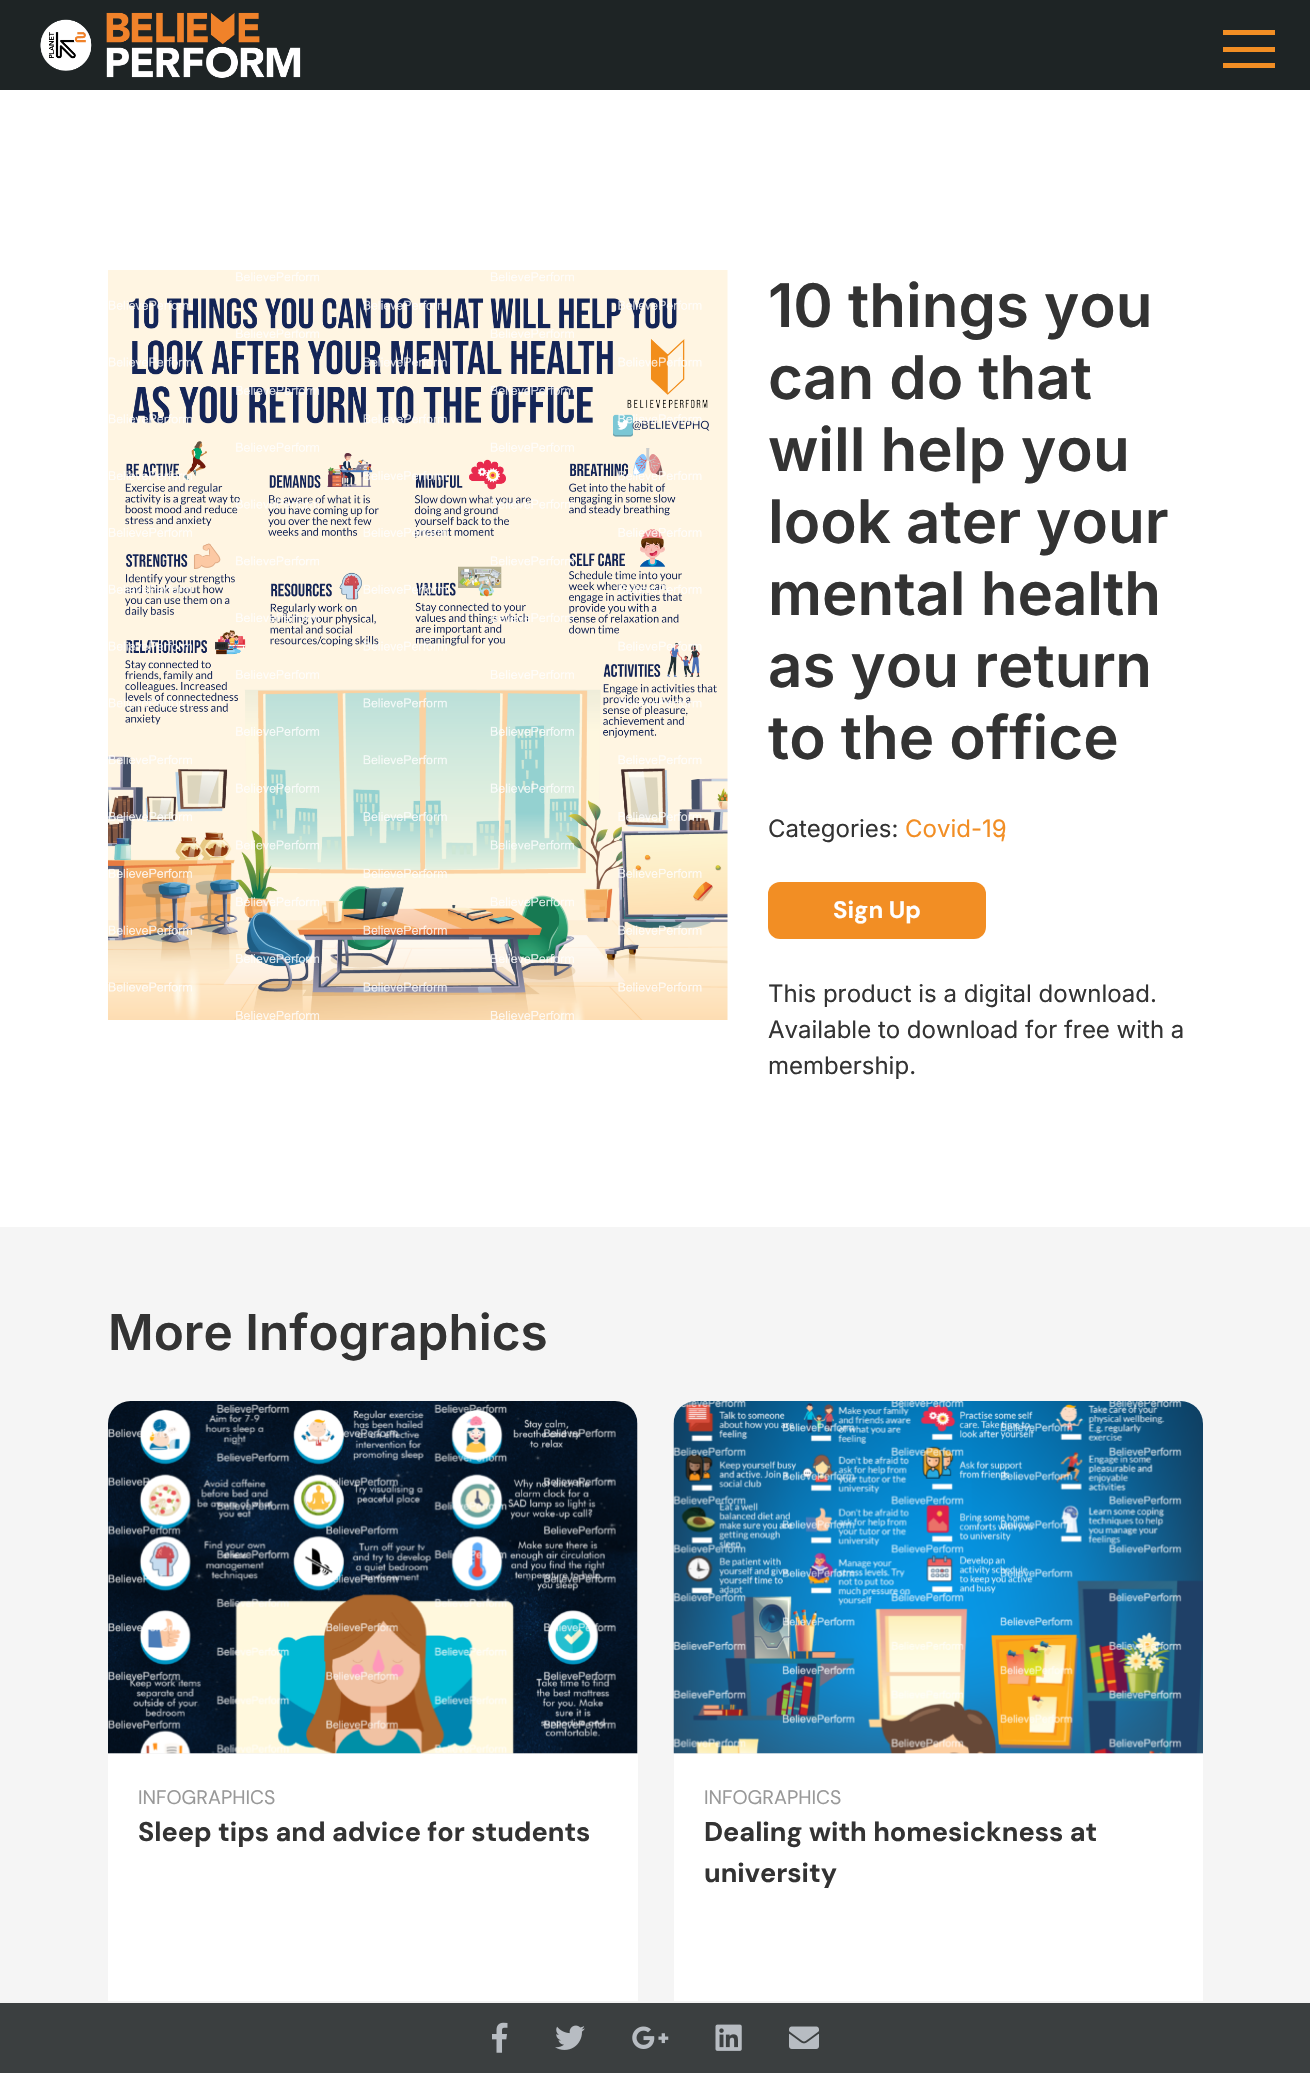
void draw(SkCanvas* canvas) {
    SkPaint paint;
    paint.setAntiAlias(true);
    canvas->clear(0xFFFFFFFF);
    paint.setColor(0xFF1E2425);
    canvas->drawRect(SkRect::MakeXYWH(0, 0, 1310, 90), paint);
    canvas->drawImageRect(SkImages::DeferredFromEncodedData(SkData::MakeFromFileName("img1.png")), SkRect::MakeXYWH(40, 12, 261, 66), SkSamplingOptions());
    paint.setColor(0xFFF28E24);
    canvas->drawRect(SkRect::MakeXYWH(1223, 30, 52, 5), paint);
    canvas->drawRect(SkRect::MakeXYWH(1223, 47, 52, 5), paint);
    canvas->drawRect(SkRect::MakeXYWH(1223, 63, 52, 5), paint);
    canvas->drawImageRect(SkImages::DeferredFromEncodedData(SkData::MakeFromFileName("img2.png")), SkRect::MakeXYWH(108, 270, 620, 750), SkSamplingOptions());
    SkFont font1(fontMgr->matchFamilyStyle("Inter", SkFontStyle(600, SkFontStyle::kNormal_Width, SkFontStyle::kUpright_Slant)), 60);
    font1.setSubpixel(true);
    paint.setColor(0xFF333333);
    canvas->drawString("10 things you", 768, 327, font1, paint);
    canvas->drawString("can do that", 768, 399, font1, paint);
    canvas->drawString("will help you", 768, 471, font1, paint);
    canvas->drawString("look ater your", 768, 543, font1, paint);
    canvas->drawString("mental health", 768, 615, font1, paint);
    canvas->drawString("as you return", 768, 687, font1, paint);
    canvas->drawString("to the office", 768, 759, font1, paint);
    SkFont font2(fontMgr->matchFamilyStyle("Inter", SkFontStyle::Normal()), 24);
    font2.setSubpixel(true);
    canvas->drawString("Categories:", 768, 837, font2, paint);
    paint.setColor(0xFFF28E24);
    canvas->drawString("Covid-19", 905, 837, font2, paint);
    canvas->drawString(",", 1000, 837, font2, paint);
    canvas->drawRoundRect(SkRect::MakeXYWH(768, 882, 218, 57), 12, 12, paint);
    SkFont font3(fontMgr->matchFamilyStyle("DM Sans", SkFontStyle::Bold()), 24);
    font3.setSubpixel(true);
    paint.setColor(0xFFFFFFFF);
    canvas->drawString("Sign Up", 833, 918, font3, paint);
    paint.setColor(0xFF333333);
    canvas->drawString("This product is a digital download.", 768, 1002, font2, paint);
    canvas->drawString("Available to download for free with a", 768, 1038, font2, paint);
    canvas->drawString("membership.", 768, 1074, font2, paint);
    paint.setColor(0xFFF5F5F5);
    canvas->drawRect(SkRect::MakeXYWH(0, 1227, 1310, 774), paint);
    SkFont font4(fontMgr->matchFamilyStyle("Inter", SkFontStyle(600, SkFontStyle::kNormal_Width, SkFontStyle::kUpright_Slant)), 49.5f);
    font4.setSubpixel(true);
    paint.setColor(0xFF333333);
    canvas->drawString("More Infographics", 108, 1350, font4, paint);
    canvas->drawImageRect(SkImages::DeferredFromEncodedData(SkData::MakeFromFileName("img3.png")), SkRect::MakeXYWH(108, 1401, 530, 353), SkSamplingOptions());
    paint.setColor(0xFFFFFFFF);
    canvas->drawRect(SkRect::MakeXYWH(108, 1754, 530, 247), paint);
    SkFont font5(fontMgr->matchFamilyStyle("DM Sans", SkFontStyle::Normal()), 19.5f);
    font5.setSubpixel(true);
    paint.setColor(0xFF999999);
    canvas->drawString("INFOGRAPHICS", 138, 1804, font5, paint);
    SkFont font6(fontMgr->matchFamilyStyle("DM Sans", SkFontStyle::Bold()), 27);
    font6.setSubpixel(true);
    paint.setColor(0xFF333333);
    canvas->drawString("Sleep tips and advice for students", 138, 1841, font6, paint);
    canvas->drawImageRect(SkImages::DeferredFromEncodedData(SkData::MakeFromFileName("img4.png")), SkRect::MakeXYWH(673, 1401, 530, 353), SkSamplingOptions());
    paint.setColor(0xFFFFFFFF);
    canvas->drawRect(SkRect::MakeXYWH(674, 1754, 529, 247), paint);
    paint.setColor(0xFF999999);
    canvas->drawString("INFOGRAPHICS", 704, 1804, font5, paint);
    paint.setColor(0xFF333333);
    canvas->drawString("Dealing with homesickness at", 704, 1841, font6, paint);
    canvas->drawString("university", 704, 1882, font6, paint);
    paint.setColor(0xFF3B3F40);
    canvas->drawRect(SkRect::MakeXYWH(0, 2003, 1310, 70), paint);
    paint.setColor(0xFFF3F3F3);
    canvas->drawRect(SkRect::MakeXYWH(0, 2001, 1310, 2), paint);
    canvas->drawImageRect(SkImages::DeferredFromEncodedData(SkData::MakeFromFileName("img5.png")), SkRect::MakeXYWH(492, 2022, 16, 31), SkSamplingOptions());
    canvas->drawImageRect(SkImages::DeferredFromEncodedData(SkData::MakeFromFileName("img6.png")), SkRect::MakeXYWH(555, 2025, 30, 25), SkSamplingOptions());
    canvas->drawImageRect(SkImages::DeferredFromEncodedData(SkData::MakeFromFileName("img7.png")), SkRect::MakeXYWH(632, 2026, 37, 23), SkSamplingOptions());
    canvas->drawImageRect(SkImages::DeferredFromEncodedData(SkData::MakeFromFileName("img8.png")), SkRect::MakeXYWH(715, 2024, 27, 27), SkSamplingOptions());
    canvas->drawImageRect(SkImages::DeferredFromEncodedData(SkData::MakeFromFileName("img9.png")), SkRect::MakeXYWH(789, 2026, 30, 23), SkSamplingOptions());
}
